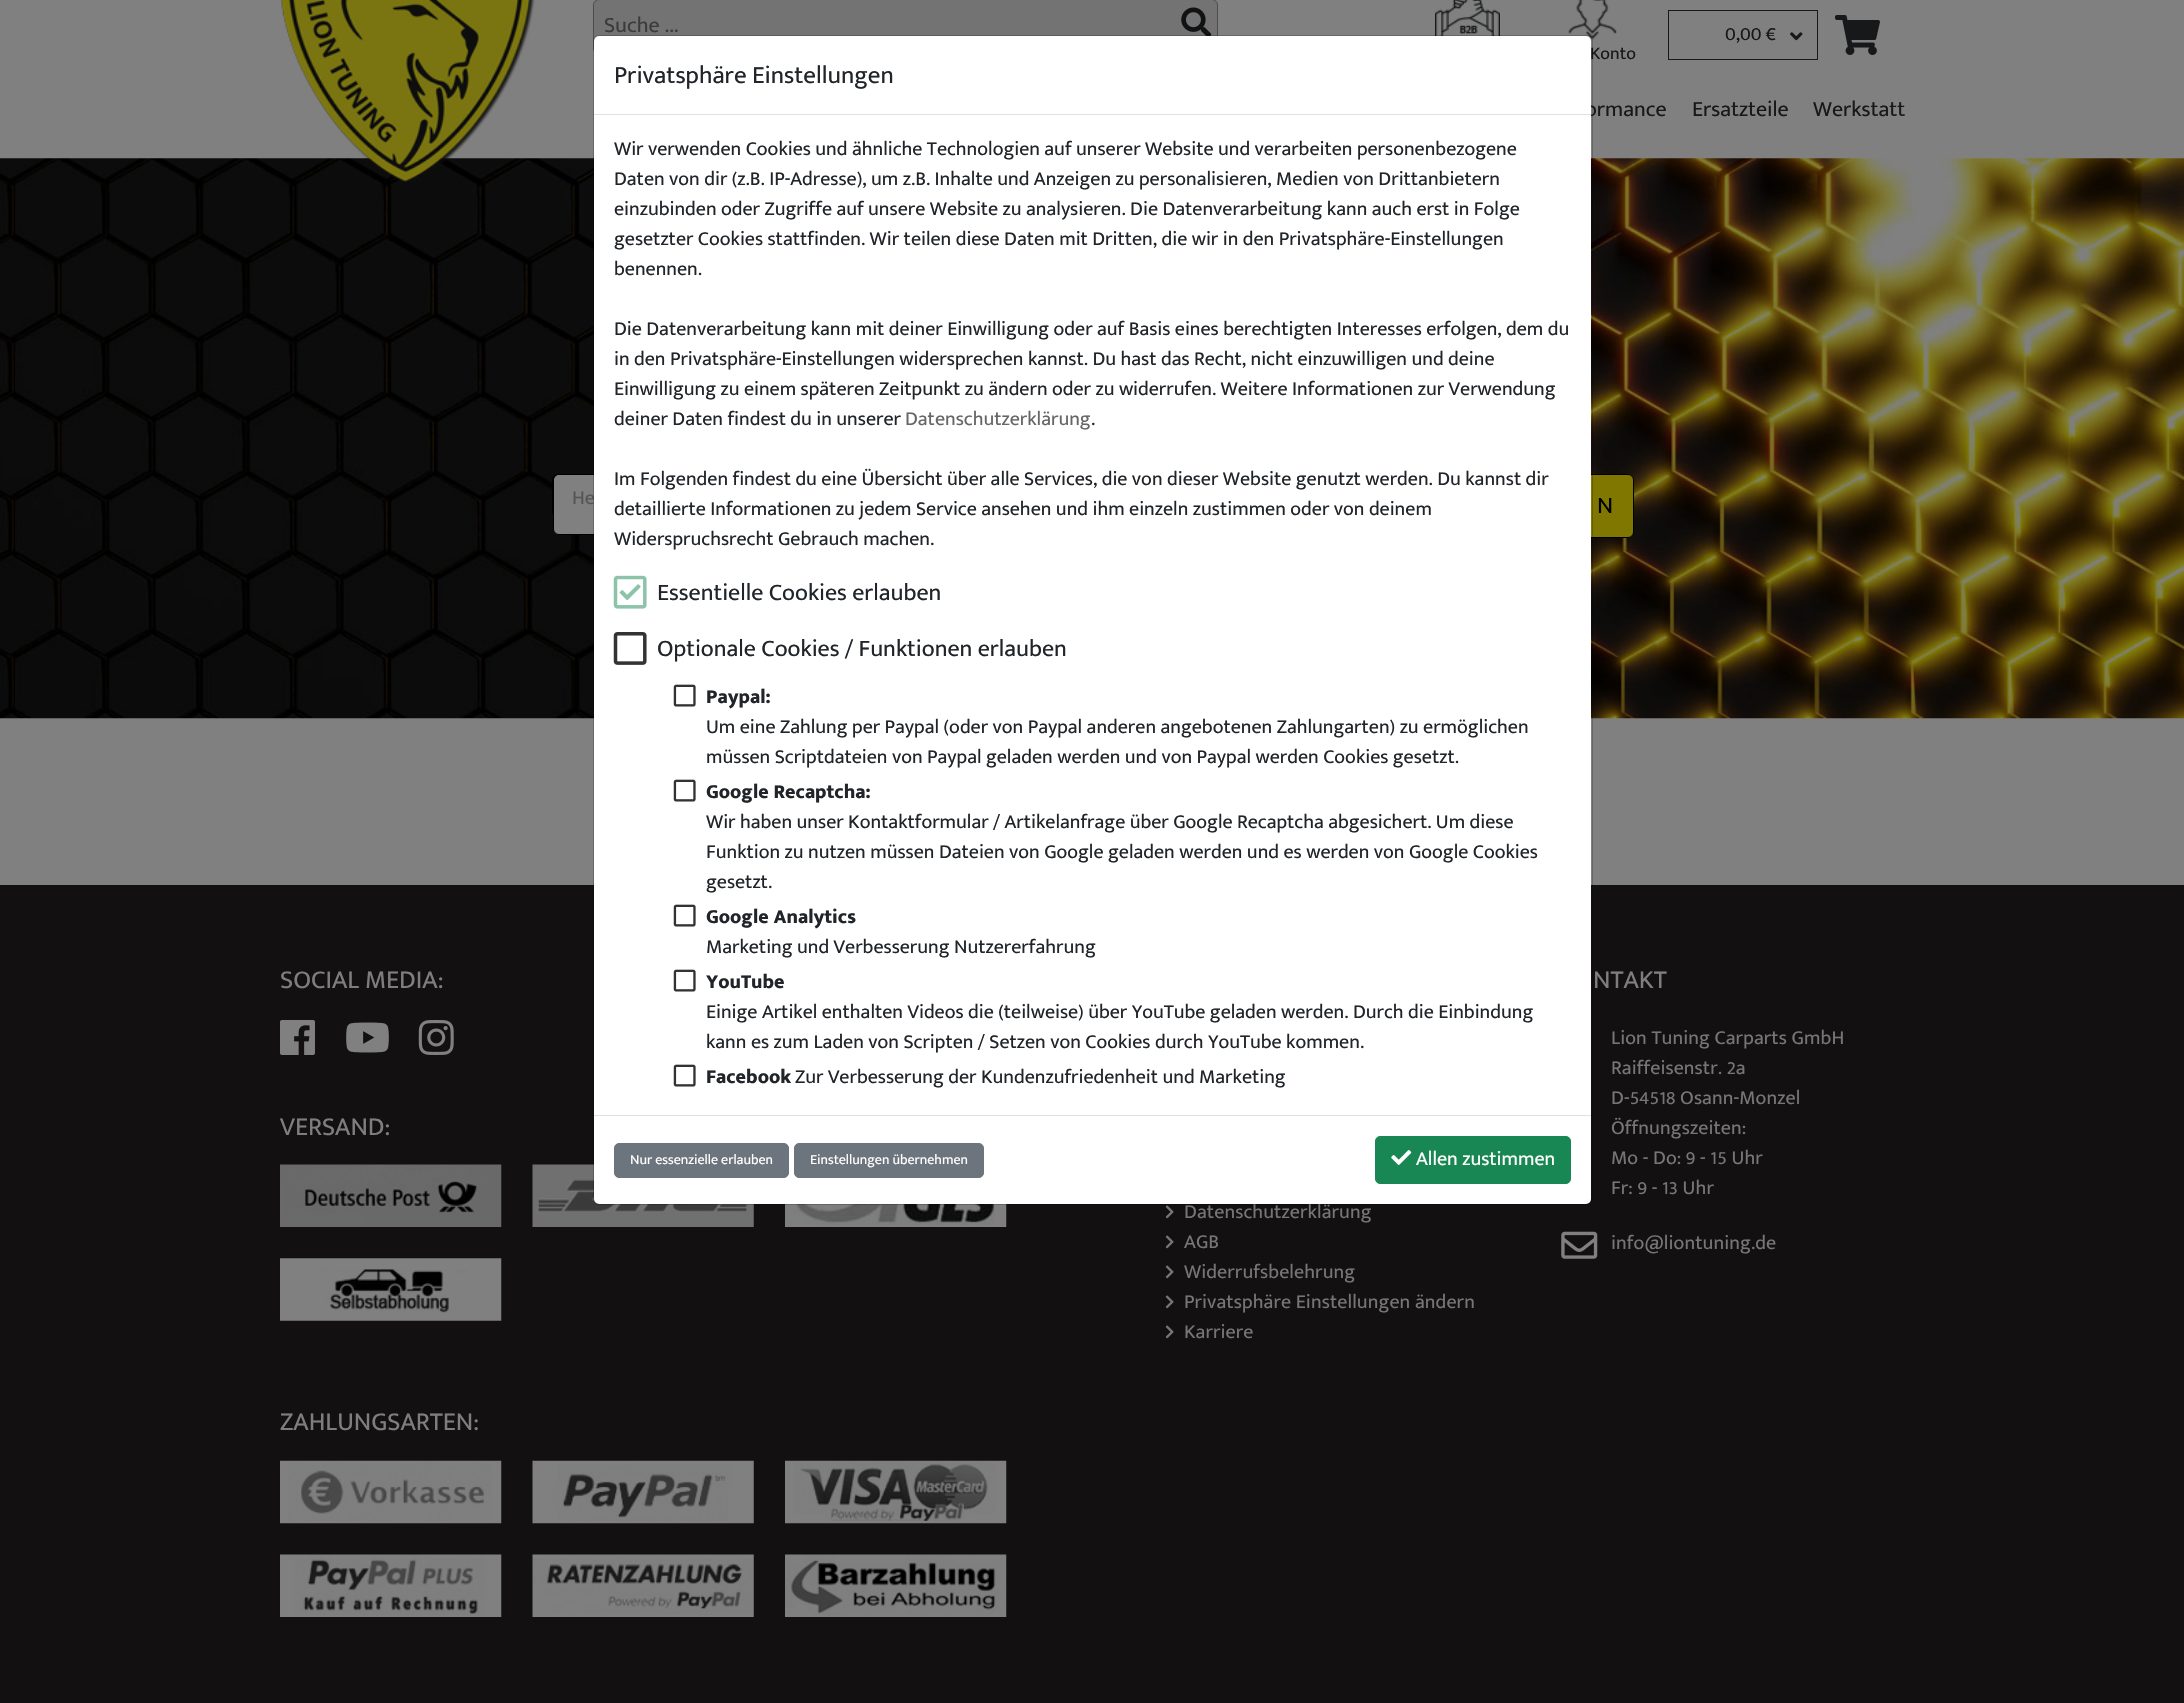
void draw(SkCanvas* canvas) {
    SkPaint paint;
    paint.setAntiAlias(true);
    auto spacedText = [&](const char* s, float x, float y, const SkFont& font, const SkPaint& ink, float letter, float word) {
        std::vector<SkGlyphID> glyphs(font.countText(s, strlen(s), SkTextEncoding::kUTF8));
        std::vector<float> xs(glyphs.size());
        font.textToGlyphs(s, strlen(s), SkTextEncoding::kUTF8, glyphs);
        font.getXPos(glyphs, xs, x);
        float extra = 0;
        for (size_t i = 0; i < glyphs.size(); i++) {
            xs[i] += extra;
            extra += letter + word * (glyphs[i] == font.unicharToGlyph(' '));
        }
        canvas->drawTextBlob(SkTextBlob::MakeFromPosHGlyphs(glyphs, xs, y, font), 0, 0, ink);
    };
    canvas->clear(0xFF808080);
    canvas->drawImageRect(SkImages::DeferredFromEncodedData(SkData::MakeFromFileName("img7.png")), SkRect::MakeXYWH(0, 158, 2184, 561), SkSamplingOptions());
    canvas->drawImageRect(SkImages::DeferredFromEncodedData(SkData::MakeFromFileName("img1.png")), SkRect::MakeXYWH(280, 0, 255, 182), SkSamplingOptions());
    paint.setColor(0xFF737373);
    canvas->drawRoundRect(SkRect::MakeXYWH(593.5f, -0.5f, 624, 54), 5.5f, 5.5f, paint);
    paint.setStyle(SkPaint::kStroke_Style);
    paint.setStrokeWidth(1);
    paint.setColor(0xFF4D4D4D);
    canvas->drawRoundRect(SkRect::MakeXYWH(593.5f, -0.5f, 624, 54), 5.5f, 5.5f, paint);
    SkFont font1(fontMgr->matchFamilyStyle("Mukta Mahee", SkFontStyle::Normal()), 22);
    font1.setSubpixel(true);
    paint.setStyle(SkPaint::kFill_Style);
    paint.setColor(0xFF3B3B3B);
    canvas->drawString("Suche ...", 604, 32, font1, paint);
    canvas->drawImageRect(SkImages::DeferredFromEncodedData(SkData::MakeFromFileName("img2.png")), SkRect::MakeXYWH(1181, 7, 31, 29), SkSamplingOptions());
    canvas->drawImageRect(SkImages::DeferredFromEncodedData(SkData::MakeFromFileName("img3.png")), SkRect::MakeXYWH(1435, 0, 65, 36), SkSamplingOptions());
    paint.setStyle(SkPaint::kStroke_Style);
    paint.setColor(0xFF17181A);
    canvas->drawRect(SkRect::MakeXYWH(1668.5f, 10.5f, 149, 49), paint);
    SkFont font2(fontMgr->matchFamilyStyle("Mukta Mahee", SkFontStyle::Normal()), 20);
    font2.setSubpixel(true);
    paint.setStyle(SkPaint::kFill_Style);
    canvas->drawString("0,00 €", 1725, 40, font2, paint);
    canvas->drawImageRect(SkImages::DeferredFromEncodedData(SkData::MakeFromFileName("img4.png")), SkRect::MakeXYWH(1790, 32, 13, 9), SkSamplingOptions());
    canvas->drawImageRect(SkImages::DeferredFromEncodedData(SkData::MakeFromFileName("img5.png")), SkRect::MakeXYWH(1835, 15, 45, 40), SkSamplingOptions());
    canvas->drawImageRect(SkImages::DeferredFromEncodedData(SkData::MakeFromFileName("img6.png")), SkRect::MakeXYWH(1568, 0, 49, 41), SkSamplingOptions());
    SkFont font3(fontMgr->matchFamilyStyle("Mukta Mahee", SkFontStyle::Normal()), 18);
    font3.setSubpixel(true);
    canvas->drawString("Konto", 1590, 59, font3, paint);
    canvas->drawString("ormance", 1585, 116, font1, paint);
    canvas->drawString("Ersatzteile", 1692, 116, font1, paint);
    canvas->drawString("Werkstatt", 1813, 116, font1, paint);
    paint.setColor(0xFF808080);
    canvas->drawRoundRect(SkRect::MakeXYWH(553.5f, 474.5f, 249, 60), 5.5f, 5.5f, paint);
    paint.setStyle(SkPaint::kStroke_Style);
    paint.setColor(0xFF000000);
    canvas->drawRoundRect(SkRect::MakeXYWH(553.5f, 474.5f, 249, 60), 5.5f, 5.5f, paint);
    paint.setStyle(SkPaint::kFill_Style);
    paint.setColor(0xFF808080);
    canvas->drawPath(SkPathBuilder().moveTo(559, 475).lineTo(796, 475).cubicTo(799, 475, 801, 477, 801, 480).lineTo(801, 514).lineTo(554, 514).lineTo(554, 480).cubicTo(554, 477, 556, 475, 559, 475).close().detach(), paint);
    paint.setColor(0xFF000000);
    canvas->drawPath(SkPathBuilder(SkPathFillType::kEvenOdd).moveTo(559, 474).lineTo(796, 474).cubicTo(800, 474, 802, 477, 802, 480).lineTo(802, 514).lineTo(552, 514).lineTo(552, 480).cubicTo(552, 477, 555, 474, 559, 474).close().moveTo(559, 475).lineTo(796, 475).cubicTo(799, 475, 801, 477, 801, 480).lineTo(801, 514).lineTo(554, 514).lineTo(554, 480).cubicTo(554, 477, 556, 475, 559, 475).close().detach(), paint);
    paint.setColor(0xFF555555);
    canvas->drawString("He", 572, 504, font2, paint);
    paint.setColor(0xFF807700);
    canvas->drawRoundRect(SkRect::MakeXYWH(1509.5f, 474.5f, 124, 63), 5.5f, 5.5f, paint);
    paint.setStyle(SkPaint::kStroke_Style);
    paint.setColor(0xFF000000);
    canvas->drawRoundRect(SkRect::MakeXYWH(1509.5f, 474.5f, 124, 63), 5.5f, 5.5f, paint);
    SkFont font4(fontMgr->matchFamilyStyle("Mukta Mahee", SkFontStyle::Normal()), 24);
    font4.setSubpixel(true);
    paint.setStyle(SkPaint::kFill_Style);
    canvas->drawString("N", 1597, 513, font4, paint);
    paint.setColor(0xFF121010);
    canvas->drawRect(SkRect::MakeXYWH(0, 885, 2184, 818), paint);
    canvas->drawImageRect(SkImages::DeferredFromEncodedData(SkData::MakeFromFileName("img16.png")), SkRect::MakeXYWH(532, 1164, 222, 63), SkSamplingOptions());
    paint.setColor(0xFF767676);
    spacedText("Datenschutzerklärung", 1184, 1218, font2, paint, 0.1f, 0);
    paint.setColor(0xFFFFFFFF);
    canvas->drawRoundRect(SkRect::MakeXYWH(594, 36, 997, 1168), 5, 5, paint);
    canvas->drawImageRect(SkImages::DeferredFromEncodedData(SkData::MakeFromFileName("img17.png")), SkRect::MakeXYWH(785, 1204, 222, 23), SkSamplingOptions());
    paint.setStyle(SkPaint::kStroke_Style);
    paint.setColor(0x33000000);
    canvas->drawRoundRect(SkRect::MakeXYWH(593.5f, 35.5f, 999, 1169), 5.5f, 5.5f, paint);
    paint.setStyle(SkPaint::kFill_Style);
    paint.setColor(0xFFDEE2E6);
    canvas->drawRect(SkRect::MakeXYWH(594, 114, 997, 1), paint);
    SkFont font5(fontMgr->matchFamilyStyle("Mukta Mahee", SkFontStyle::Normal()), 25);
    font5.setSubpixel(true);
    paint.setColor(0xFF212529);
    canvas->drawString("Privatsphäre Einstellungen", 614, 83, font5, paint);
    canvas->drawString("Wir verwenden Cookies und ähnliche Technologien auf unserer Website und verarbeiten personenbezogene", 614, 155, font2, paint);
    canvas->drawString("Daten von dir (z.B. IP-Adresse), um z.B. Inhalte und Anzeigen zu personalisieren, Medien von Drittanbietern", 614, 185, font2, paint);
    canvas->drawString("einzubinden oder Zugriffe auf unsere Website zu analysieren. Die Datenverarbeitung kann auch erst in Folge", 614, 215, font2, paint);
    canvas->drawString("gesetzter Cookies stattfinden. Wir teilen diese Daten mit Dritten, die wir in den Privatsphäre-Einstellungen", 614, 245, font2, paint);
    canvas->drawString("benennen.", 614, 275, font2, paint);
    canvas->drawString("Die Datenverarbeitung kann mit deiner Einwilligung oder auf Basis eines berechtigten Interesses erfolgen, dem du", 614, 335, font2, paint);
    canvas->drawString("in den Privatsphäre-Einstellungen widersprechen kannst. Du hast das Recht, nicht einzuwilligen und deine", 614, 365, font2, paint);
    canvas->drawString("Einwilligung zu einem späteren Zeitpunkt zu ändern oder zu widerrufen. Weitere Informationen zur Verwendung", 614, 395, font2, paint);
    canvas->drawString("deiner Daten findest du in unserer", 614, 425, font2, paint);
    paint.setColor(0xFF666666);
    canvas->drawString("Datenschutzerklärung", 905, 425, font2, paint);
    paint.setColor(0xFF212529);
    canvas->drawString(".", 1091, 425, font2, paint);
    canvas->drawString("Im Folgenden findest du eine Übersicht über alle Services, die von dieser Website genutzt werden. Du kannst dir", 614, 485, font2, paint);
    canvas->drawString("detaillierte Informationen zu jedem Service ansehen und ihm einzeln zustimmen oder von deinem", 614, 515, font2, paint);
    canvas->drawString("Widerspruchsrecht Gebrauch machen.", 614, 545, font2, paint);
    canvas->drawImageRect(SkImages::DeferredFromEncodedData(SkData::MakeFromFileName("img8.png")), SkRect::MakeXYWH(613, 575, 34, 34), SkSamplingOptions());
    canvas->drawString("Essentielle Cookies erlauben", 657, 600, font4, paint);
    canvas->drawImageRect(SkImages::DeferredFromEncodedData(SkData::MakeFromFileName("img9.png")), SkRect::MakeXYWH(613, 632, 34, 33), SkSamplingOptions());
    canvas->drawString("Optionale Cookies / Funktionen erlauben", 657, 656, font4, paint);
    canvas->drawImageRect(SkImages::DeferredFromEncodedData(SkData::MakeFromFileName("img10.png")), SkRect::MakeXYWH(673, 684, 23, 23), SkSamplingOptions());
    SkFont font6(fontMgr->matchFamilyStyle("Mukta Mahee", SkFontStyle(800, SkFontStyle::kNormal_Width, SkFontStyle::kUpright_Slant)), 20);
    font6.setSubpixel(true);
    canvas->drawString("Paypal:", 706, 703, font6, paint);
    canvas->drawString("Um eine Zahlung per Paypal (oder von Paypal anderen angebotenen Zahlungarten) zu ermöglichen", 706, 733, font2, paint);
    canvas->drawString("müssen Scriptdateien von Paypal geladen werden und von Paypal werden Cookies gesetzt.", 706, 763, font2, paint);
    canvas->drawImageRect(SkImages::DeferredFromEncodedData(SkData::MakeFromFileName("img10.png")), SkRect::MakeXYWH(673, 779, 23, 23), SkSamplingOptions());
    canvas->drawString("Google Recaptcha:", 706, 798, font6, paint);
    canvas->drawString("Wir haben unser Kontaktformular / Artikelanfrage über Google Recaptcha abgesichert. Um diese", 706, 828, font2, paint);
    canvas->drawString("Funktion zu nutzen müssen Dateien von Google geladen werden und es werden von Google Cookies", 706, 858, font2, paint);
    canvas->drawString("gesetzt.", 706, 888, font2, paint);
    canvas->drawImageRect(SkImages::DeferredFromEncodedData(SkData::MakeFromFileName("img10.png")), SkRect::MakeXYWH(673, 904, 23, 23), SkSamplingOptions());
    canvas->drawString("Google Analytics", 706, 923, font6, paint);
    canvas->drawString("Marketing und Verbesserung Nutzererfahrung", 706, 953, font2, paint);
    canvas->drawImageRect(SkImages::DeferredFromEncodedData(SkData::MakeFromFileName("img10.png")), SkRect::MakeXYWH(673, 969, 23, 23), SkSamplingOptions());
    canvas->drawString("YouTube", 706, 988, font6, paint);
    canvas->drawString("Einige Artikel enthalten Videos die (teilweise) über YouTube geladen werden. Durch die Einbindung", 706, 1018, font2, paint);
    canvas->drawString("kann es zum Laden von Scripten / Setzen von Cookies durch YouTube kommen.", 706, 1048, font2, paint);
    canvas->drawImageRect(SkImages::DeferredFromEncodedData(SkData::MakeFromFileName("img10.png")), SkRect::MakeXYWH(673, 1064, 23, 23), SkSamplingOptions());
    canvas->drawString("Facebook", 706, 1083, font6, paint);
    canvas->drawString("Zur Verbesserung der Kundenzufriedenheit und Marketing", 795, 1083, font2, paint);
    paint.setColor(0xFFDEE2E6);
    canvas->drawRect(SkRect::MakeXYWH(594, 1115, 997, 1), paint);
    paint.setColor(0xFF6C757D);
    canvas->drawRoundRect(SkRect::MakeXYWH(614.5f, 1143.5f, 174, 34), 4.5f, 4.5f, paint);
    paint.setStyle(SkPaint::kStroke_Style);
    canvas->drawRoundRect(SkRect::MakeXYWH(614.5f, 1143.5f, 174, 34), 4.5f, 4.5f, paint);
    SkFont font7(fontMgr->matchFamilyStyle("Mukta Mahee", SkFontStyle::Normal()), 14);
    font7.setSubpixel(true);
    paint.setStyle(SkPaint::kFill_Style);
    paint.setColor(0xFFFFFFFF);
    canvas->drawString("Nur essenzielle erlauben", 630, 1164, font7, paint);
    paint.setColor(0xFF6C757D);
    canvas->drawRoundRect(SkRect::MakeXYWH(794.5f, 1143.5f, 189, 34), 4.5f, 4.5f, paint);
    paint.setStyle(SkPaint::kStroke_Style);
    canvas->drawRoundRect(SkRect::MakeXYWH(794.5f, 1143.5f, 189, 34), 4.5f, 4.5f, paint);
    paint.setStyle(SkPaint::kFill_Style);
    paint.setColor(0xFFFFFFFF);
    canvas->drawString("Einstellungen übernehmen", 810, 1164, font7, paint);
    paint.setColor(0xFF198754);
    canvas->drawRoundRect(SkRect::MakeXYWH(1375.5f, 1136.5f, 195, 47), 4.5f, 4.5f, paint);
    paint.setStyle(SkPaint::kStroke_Style);
    canvas->drawRoundRect(SkRect::MakeXYWH(1375.5f, 1136.5f, 195, 47), 4.5f, 4.5f, paint);
    canvas->drawImageRect(SkImages::DeferredFromEncodedData(SkData::MakeFromFileName("img11.png")), SkRect::MakeXYWH(1391, 1150, 21, 15), SkSamplingOptions());
    paint.setStyle(SkPaint::kFill_Style);
    paint.setColor(0xFFFFFFFF);
    canvas->drawString("Allen zustimmen", 1416, 1165, font2, paint);
    SkFont font8(fontMgr->matchFamilyStyle("Mukta Mahee", SkFontStyle::Normal()), 26);
    font8.setSubpixel(true);
    paint.setColor(0xFF7E7E7E);
    canvas->drawString("SOCIAL MEDIA:", 280, 988, font8, paint);
    canvas->drawImageRect(SkImages::DeferredFromEncodedData(SkData::MakeFromFileName("img12.png")), SkRect::MakeXYWH(280, 1020, 35, 35), SkSamplingOptions());
    canvas->drawImageRect(SkImages::DeferredFromEncodedData(SkData::MakeFromFileName("img13.png")), SkRect::MakeXYWH(346, 1022, 43, 31), SkSamplingOptions());
    canvas->drawImageRect(SkImages::DeferredFromEncodedData(SkData::MakeFromFileName("img14.png")), SkRect::MakeXYWH(418, 1020, 36, 35), SkSamplingOptions());
    canvas->drawString("VERSAND:", 280, 1135, font8, paint);
    canvas->drawImageRect(SkImages::DeferredFromEncodedData(SkData::MakeFromFileName("img15.png")), SkRect::MakeXYWH(280, 1164, 222, 63), SkSamplingOptions());
    canvas->drawImageRect(SkImages::DeferredFromEncodedData(SkData::MakeFromFileName("img18.png")), SkRect::MakeXYWH(280, 1258, 222, 63), SkSamplingOptions());
    canvas->drawString("ZAHLUNGSARTEN:", 280, 1430, font8, paint);
    canvas->drawImageRect(SkImages::DeferredFromEncodedData(SkData::MakeFromFileName("img19.png")), SkRect::MakeXYWH(280, 1460, 222, 64), SkSamplingOptions());
    canvas->drawImageRect(SkImages::DeferredFromEncodedData(SkData::MakeFromFileName("img20.png")), SkRect::MakeXYWH(532, 1460, 222, 64), SkSamplingOptions());
    canvas->drawImageRect(SkImages::DeferredFromEncodedData(SkData::MakeFromFileName("img21.png")), SkRect::MakeXYWH(785, 1460, 222, 64), SkSamplingOptions());
    canvas->drawImageRect(SkImages::DeferredFromEncodedData(SkData::MakeFromFileName("img22.png")), SkRect::MakeXYWH(280, 1554, 222, 63), SkSamplingOptions());
    canvas->drawImageRect(SkImages::DeferredFromEncodedData(SkData::MakeFromFileName("img23.png")), SkRect::MakeXYWH(532, 1554, 222, 63), SkSamplingOptions());
    canvas->drawImageRect(SkImages::DeferredFromEncodedData(SkData::MakeFromFileName("img24.png")), SkRect::MakeXYWH(785, 1554, 222, 63), SkSamplingOptions());
    canvas->drawString("NTAKT", 1593, 988, font8, paint);
    paint.setColor(0xFF767676);
    spacedText("Lion Tuning Carparts GmbH", 1611, 1044, font2, paint, 0.1f, 0);
    spacedText("Raiffeisenstr. 2a", 1611, 1074, font2, paint, 0.1f, 0);
    spacedText("D-54518 Osann-Monzel", 1611, 1104, font2, paint, 0.1f, 0);
    spacedText("Öffnungszeiten:", 1611, 1134, font2, paint, 0.1f, 0);
    spacedText("Mo - Do: 9 - 15 Uhr", 1611, 1164, font2, paint, 0.1f, 0);
    spacedText("Fr: 9 - 13 Uhr", 1611, 1194, font2, paint, 0.1f, 0);
    canvas->drawImageRect(SkImages::DeferredFromEncodedData(SkData::MakeFromFileName("img25.png")), SkRect::MakeXYWH(1561, 1231, 37, 28), SkSamplingOptions());
    spacedText("info@liontuning.de", 1611, 1249, font2, paint, 0.1f, 0);
    canvas->drawImageRect(SkImages::DeferredFromEncodedData(SkData::MakeFromFileName("img26.png")), SkRect::MakeXYWH(1165, 1205, 9, 14), SkSamplingOptions());
    canvas->drawImageRect(SkImages::DeferredFromEncodedData(SkData::MakeFromFileName("img26.png")), SkRect::MakeXYWH(1165, 1235, 9, 14), SkSamplingOptions());
    spacedText("AGB", 1184, 1248, font2, paint, 0.1f, 0);
    canvas->drawImageRect(SkImages::DeferredFromEncodedData(SkData::MakeFromFileName("img26.png")), SkRect::MakeXYWH(1165, 1265, 9, 14), SkSamplingOptions());
    spacedText("Widerrufsbelehrung", 1184, 1278, font2, paint, 0.1f, 0);
    canvas->drawImageRect(SkImages::DeferredFromEncodedData(SkData::MakeFromFileName("img26.png")), SkRect::MakeXYWH(1165, 1295, 9, 14), SkSamplingOptions());
    spacedText("Privatsphäre Einstellungen ändern", 1184, 1308, font2, paint, 0.1f, 0);
    canvas->drawImageRect(SkImages::DeferredFromEncodedData(SkData::MakeFromFileName("img26.png")), SkRect::MakeXYWH(1165, 1325, 9, 14), SkSamplingOptions());
    spacedText("Karriere", 1184, 1338, font2, paint, 0.1f, 0);
}
